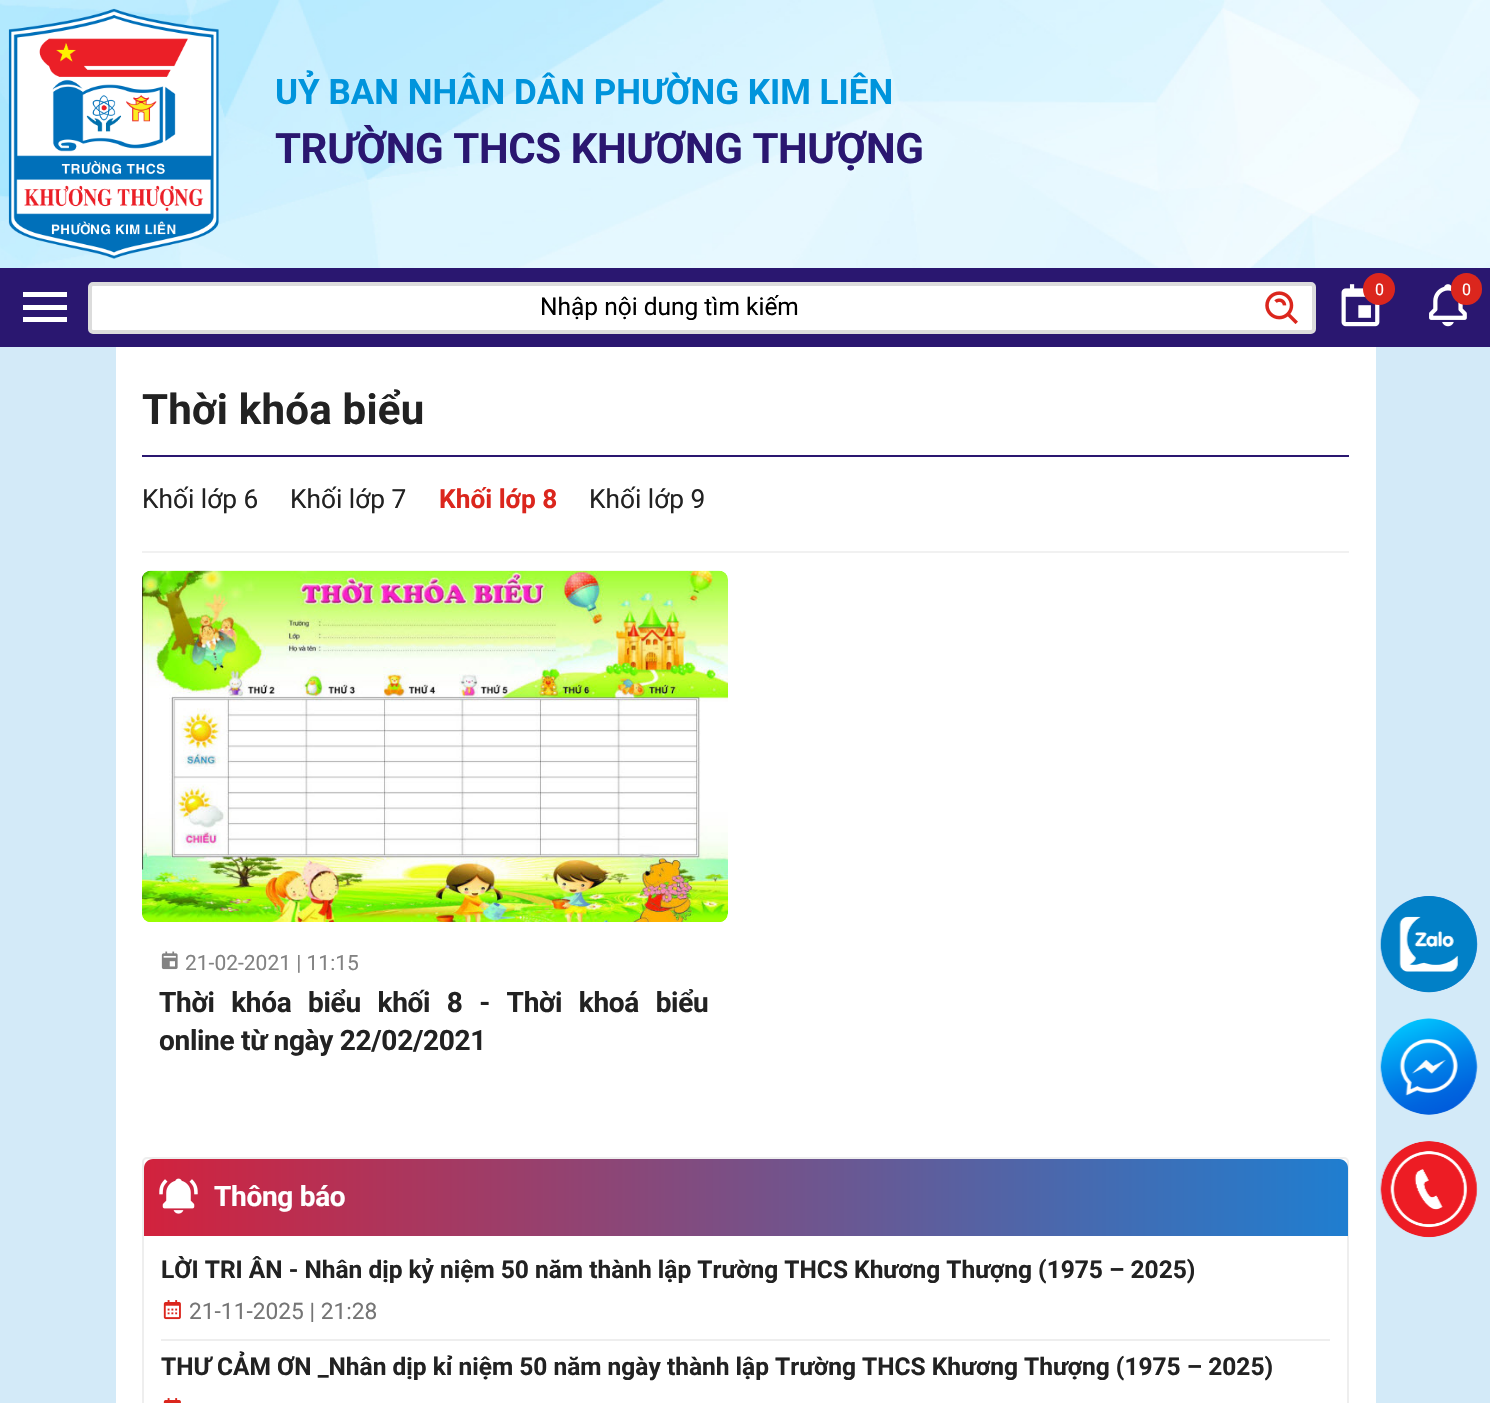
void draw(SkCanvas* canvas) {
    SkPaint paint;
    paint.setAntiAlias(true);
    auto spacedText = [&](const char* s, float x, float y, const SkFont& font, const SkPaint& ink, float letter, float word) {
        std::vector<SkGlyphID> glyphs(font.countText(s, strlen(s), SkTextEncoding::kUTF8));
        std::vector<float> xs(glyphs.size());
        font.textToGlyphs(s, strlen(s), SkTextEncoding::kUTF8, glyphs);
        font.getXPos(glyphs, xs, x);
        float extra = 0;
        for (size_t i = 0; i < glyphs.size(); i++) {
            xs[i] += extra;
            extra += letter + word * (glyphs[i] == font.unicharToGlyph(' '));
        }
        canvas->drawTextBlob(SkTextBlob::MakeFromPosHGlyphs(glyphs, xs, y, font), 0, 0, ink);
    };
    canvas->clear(0xFFFFFFFF);
    canvas->drawImageRect(SkImages::DeferredFromEncodedData(SkData::MakeFromFileName("img1.png")), SkRect::MakeXYWH(0, 0, 1490, 268), SkSamplingOptions());
    canvas->drawImageRect(SkImages::DeferredFromEncodedData(SkData::MakeFromFileName("img2.png")), SkRect::MakeXYWH(8, 8, 211, 251), SkSamplingOptions());
    SkFont font1(fontMgr->matchFamilyStyle("Roboto", SkFontStyle::Bold()), 35);
    font1.setSubpixel(true);
    paint.setColor(0xFF0094DC);
    canvas->drawString("UỶ BAN NHÂN DÂN PHƯỜNG KIM LIÊN", 275, 104, font1, paint);
    SkFont font2(fontMgr->matchFamilyStyle("Roboto", SkFontStyle::Bold()), 42);
    font2.setSubpixel(true);
    paint.setColor(0xFF2A1770);
    spacedText("TRƯỜNG THCS KHƯƠNG THƯỢNG", 275, 163, font2, paint, -0.4f, 0);
    canvas->drawRect(SkRect::MakeXYWH(0, 268, 1490, 79), paint);
    canvas->drawImageRect(SkImages::DeferredFromEncodedData(SkData::MakeFromFileName("img3.png")), SkRect::MakeXYWH(1341, 284, 39, 43), SkSamplingOptions());
    paint.setColor(0xFFDB261D);
    canvas->drawCircle(1379, 289, 16, paint);
    SkFont font3(fontMgr->matchFamilyStyle("Roboto", SkFontStyle::Normal()), 16);
    font3.setSubpixel(true);
    paint.setColor(0xFFFFFFFF);
    canvas->drawString("0", 1375, 295, font3, paint);
    canvas->drawImageRect(SkImages::DeferredFromEncodedData(SkData::MakeFromFileName("img4.png")), SkRect::MakeXYWH(1429, 284, 38, 43), SkSamplingOptions());
    paint.setColor(0xFFDB261D);
    canvas->drawRoundRect(SkRect::MakeXYWH(1451, 273, 31, 32), 15.5f, 15.5f, paint);
    paint.setColor(0xFFFFFFFF);
    canvas->drawString("0", 1462, 295, font3, paint);
    canvas->drawRect(SkRect::MakeXYWH(23, 292, 44, 5), paint);
    canvas->drawRect(SkRect::MakeXYWH(23, 305, 44, 5), paint);
    canvas->drawRect(SkRect::MakeXYWH(23, 317, 44, 5), paint);
    canvas->drawRoundRect(SkRect::MakeXYWH(90, 284, 1224, 48), 3, 3, paint);
    paint.setStyle(SkPaint::kStroke_Style);
    paint.setStrokeWidth(4);
    paint.setColor(0xFFDCDCDC);
    canvas->drawRoundRect(SkRect::MakeXYWH(90, 284, 1224, 48), 3, 3, paint);
    SkFont font4(fontMgr->matchFamilyStyle("Roboto", SkFontStyle::Normal()), 24.5f);
    font4.setSubpixel(true);
    paint.setStyle(SkPaint::kFill_Style);
    paint.setColor(0xFF000000);
    canvas->drawString("Nhập nội dung tìm kiếm", 540, 315, font4, paint);
    canvas->drawImageRect(SkImages::DeferredFromEncodedData(SkData::MakeFromFileName("img5.png")), SkRect::MakeXYWH(1265, 291, 33, 33), SkSamplingOptions());
    paint.setColor(0xFFD3EAF8);
    canvas->drawRect(SkRect::MakeXYWH(0, 347, 1490, 1056), paint);
    paint.setColor(0xFFFFFFFF);
    canvas->drawRect(SkRect::MakeXYWH(116, 347, 1260, 1056), paint);
    paint.setColor(0xFF2A1770);
    canvas->drawRect(SkRect::MakeXYWH(142, 455, 1207, 2), paint);
    paint.setColor(0xFF222222);
    spacedText("Thời khóa biểu", 142, 424, font2, paint, 0.25f, 0);
    paint.setColor(0xFFF1F1F1);
    canvas->drawRect(SkRect::MakeXYWH(142, 551, 1207, 2), paint);
    SkFont font5(fontMgr->matchFamilyStyle("Roboto", SkFontStyle::Normal()), 26.25f);
    font5.setSubpixel(true);
    paint.setColor(0xFF222222);
    canvas->drawString("Khối lớp 6", 142, 508, font5, paint);
    canvas->drawString("Khối lớp 7", 290, 508, font5, paint);
    SkFont font6(fontMgr->matchFamilyStyle("Roboto", SkFontStyle::Bold()), 26.25f);
    font6.setSubpixel(true);
    paint.setColor(0xFFDB261D);
    canvas->drawString("Khối lớp 8", 439, 508, font6, paint);
    paint.setColor(0xFF222222);
    canvas->drawString("Khối lớp 9", 589, 508, font5, paint);
    canvas->drawImageRect(SkImages::DeferredFromEncodedData(SkData::MakeFromFileName("img6.png")), SkRect::MakeXYWH(142, 570, 586, 352), SkSamplingOptions());
    canvas->drawImageRect(SkImages::DeferredFromEncodedData(SkData::MakeFromFileName("img7.png")), SkRect::MakeXYWH(161, 951, 17, 19), SkSamplingOptions());
    SkFont font7(fontMgr->matchFamilyStyle("Roboto", SkFontStyle::Normal()), 21);
    font7.setSubpixel(true);
    paint.setColor(0xFF828282);
    canvas->drawString("21-02-2021 | 11:15", 185, 970, font7, paint);
    SkFont font8(fontMgr->matchFamilyStyle("Roboto", SkFontStyle::Bold()), 28);
    font8.setSubpixel(true);
    paint.setColor(0xFF222222);
    spacedText("Thời khóa biểu khối 8 - Thời khoá biểu", 159, 1012, font8, paint, -0.3f, 10);
    spacedText("online từ ngày 22/02/2021", 159, 1050, font8, paint, -0.3f, 0);
    paint.setStyle(SkPaint::kStroke_Style);
    paint.setStrokeWidth(2);
    paint.setColor(0xFFEEEEEE);
    canvas->drawRoundRect(SkRect::MakeXYWH(143, 1158, 1205, 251), 4, 4, paint);
    paint.setStyle(SkPaint::kFill_Style);
    {
        const SkColor colors[] = {0xFF1F7ED0, 0xFFD2223D};
        const float stops[] = {0, 1};
        const SkPoint ends[] = {{1348, 1197}, {144, 1197}};
        paint.setShader(SkGradientShader::MakeLinear(ends, colors, stops, 2, SkTileMode::kClamp));
        paint.setAlpha(255);
    }
    canvas->drawPath(SkPathBuilder().moveTo(153, 1159).lineTo(1339, 1159).cubicTo(1344, 1159, 1348, 1163, 1348, 1168).lineTo(1348, 1236).lineTo(144, 1236).lineTo(144, 1168).cubicTo(144, 1163, 148, 1159, 153, 1159).close().detach(), paint);
    canvas->drawImageRect(SkImages::DeferredFromEncodedData(SkData::MakeFromFileName("img8.png")), SkRect::MakeXYWH(159, 1178, 39, 36), SkSamplingOptions());
    paint.setShader(nullptr);
    paint.setColor(0xFFFFFFFF);
    spacedText("Thông báo", 214, 1206, font8, paint, -0.3f, 0);
    SkFont font9(fontMgr->matchFamilyStyle("Roboto", SkFontStyle::Bold()), 24.5f);
    font9.setSubpixel(true);
    paint.setColor(0xFF222222);
    canvas->drawString("LỜI TRI ÂN - Nhân dịp kỷ niệm 50 năm thành lập Trường THCS Khương Thượng (1975 – 2025)", 161, 1278, font9, paint);
    canvas->drawImageRect(SkImages::DeferredFromEncodedData(SkData::MakeFromFileName("img9.png")), SkRect::MakeXYWH(163, 1300, 18, 20), SkSamplingOptions());
    SkFont font10(fontMgr->matchFamilyStyle("Roboto", SkFontStyle::Normal()), 22.75f);
    font10.setSubpixel(true);
    paint.setColor(0xFF757575);
    canvas->drawString("21-11-2025 | 21:28", 189, 1319, font10, paint);
    paint.setColor(0xFFEEEEEE);
    canvas->drawRect(SkRect::MakeXYWH(161, 1339, 1169, 2), paint);
    paint.setColor(0xFF222222);
    canvas->drawString("THƯ CẢM ƠN _Nhân dịp kỉ niệm 50 năm ngày thành lập Trường THCS Khương Thượng (1975 – 2025)", 161, 1375, font9, paint);
    canvas->drawImageRect(SkImages::DeferredFromEncodedData(SkData::MakeFromFileName("img10.png")), SkRect::MakeXYWH(163, 1398, 18, 5), SkSamplingOptions());
    paint.setColor(0xFF3178DF);
    canvas->drawCircle(1429, 944, 48, paint);
    canvas->drawImageRect(SkImages::DeferredFromEncodedData(SkData::MakeFromFileName("img11.png")), SkRect::MakeXYWH(1380, 896, 98, 97), SkSamplingOptions());
    canvas->drawImageRect(SkImages::DeferredFromEncodedData(SkData::MakeFromFileName("img12.png")), SkRect::MakeXYWH(1380, 1018, 98, 97), SkSamplingOptions());
    canvas->drawImageRect(SkImages::DeferredFromEncodedData(SkData::MakeFromFileName("img13.png")), SkRect::MakeXYWH(1380, 1141, 98, 97), SkSamplingOptions());
}
